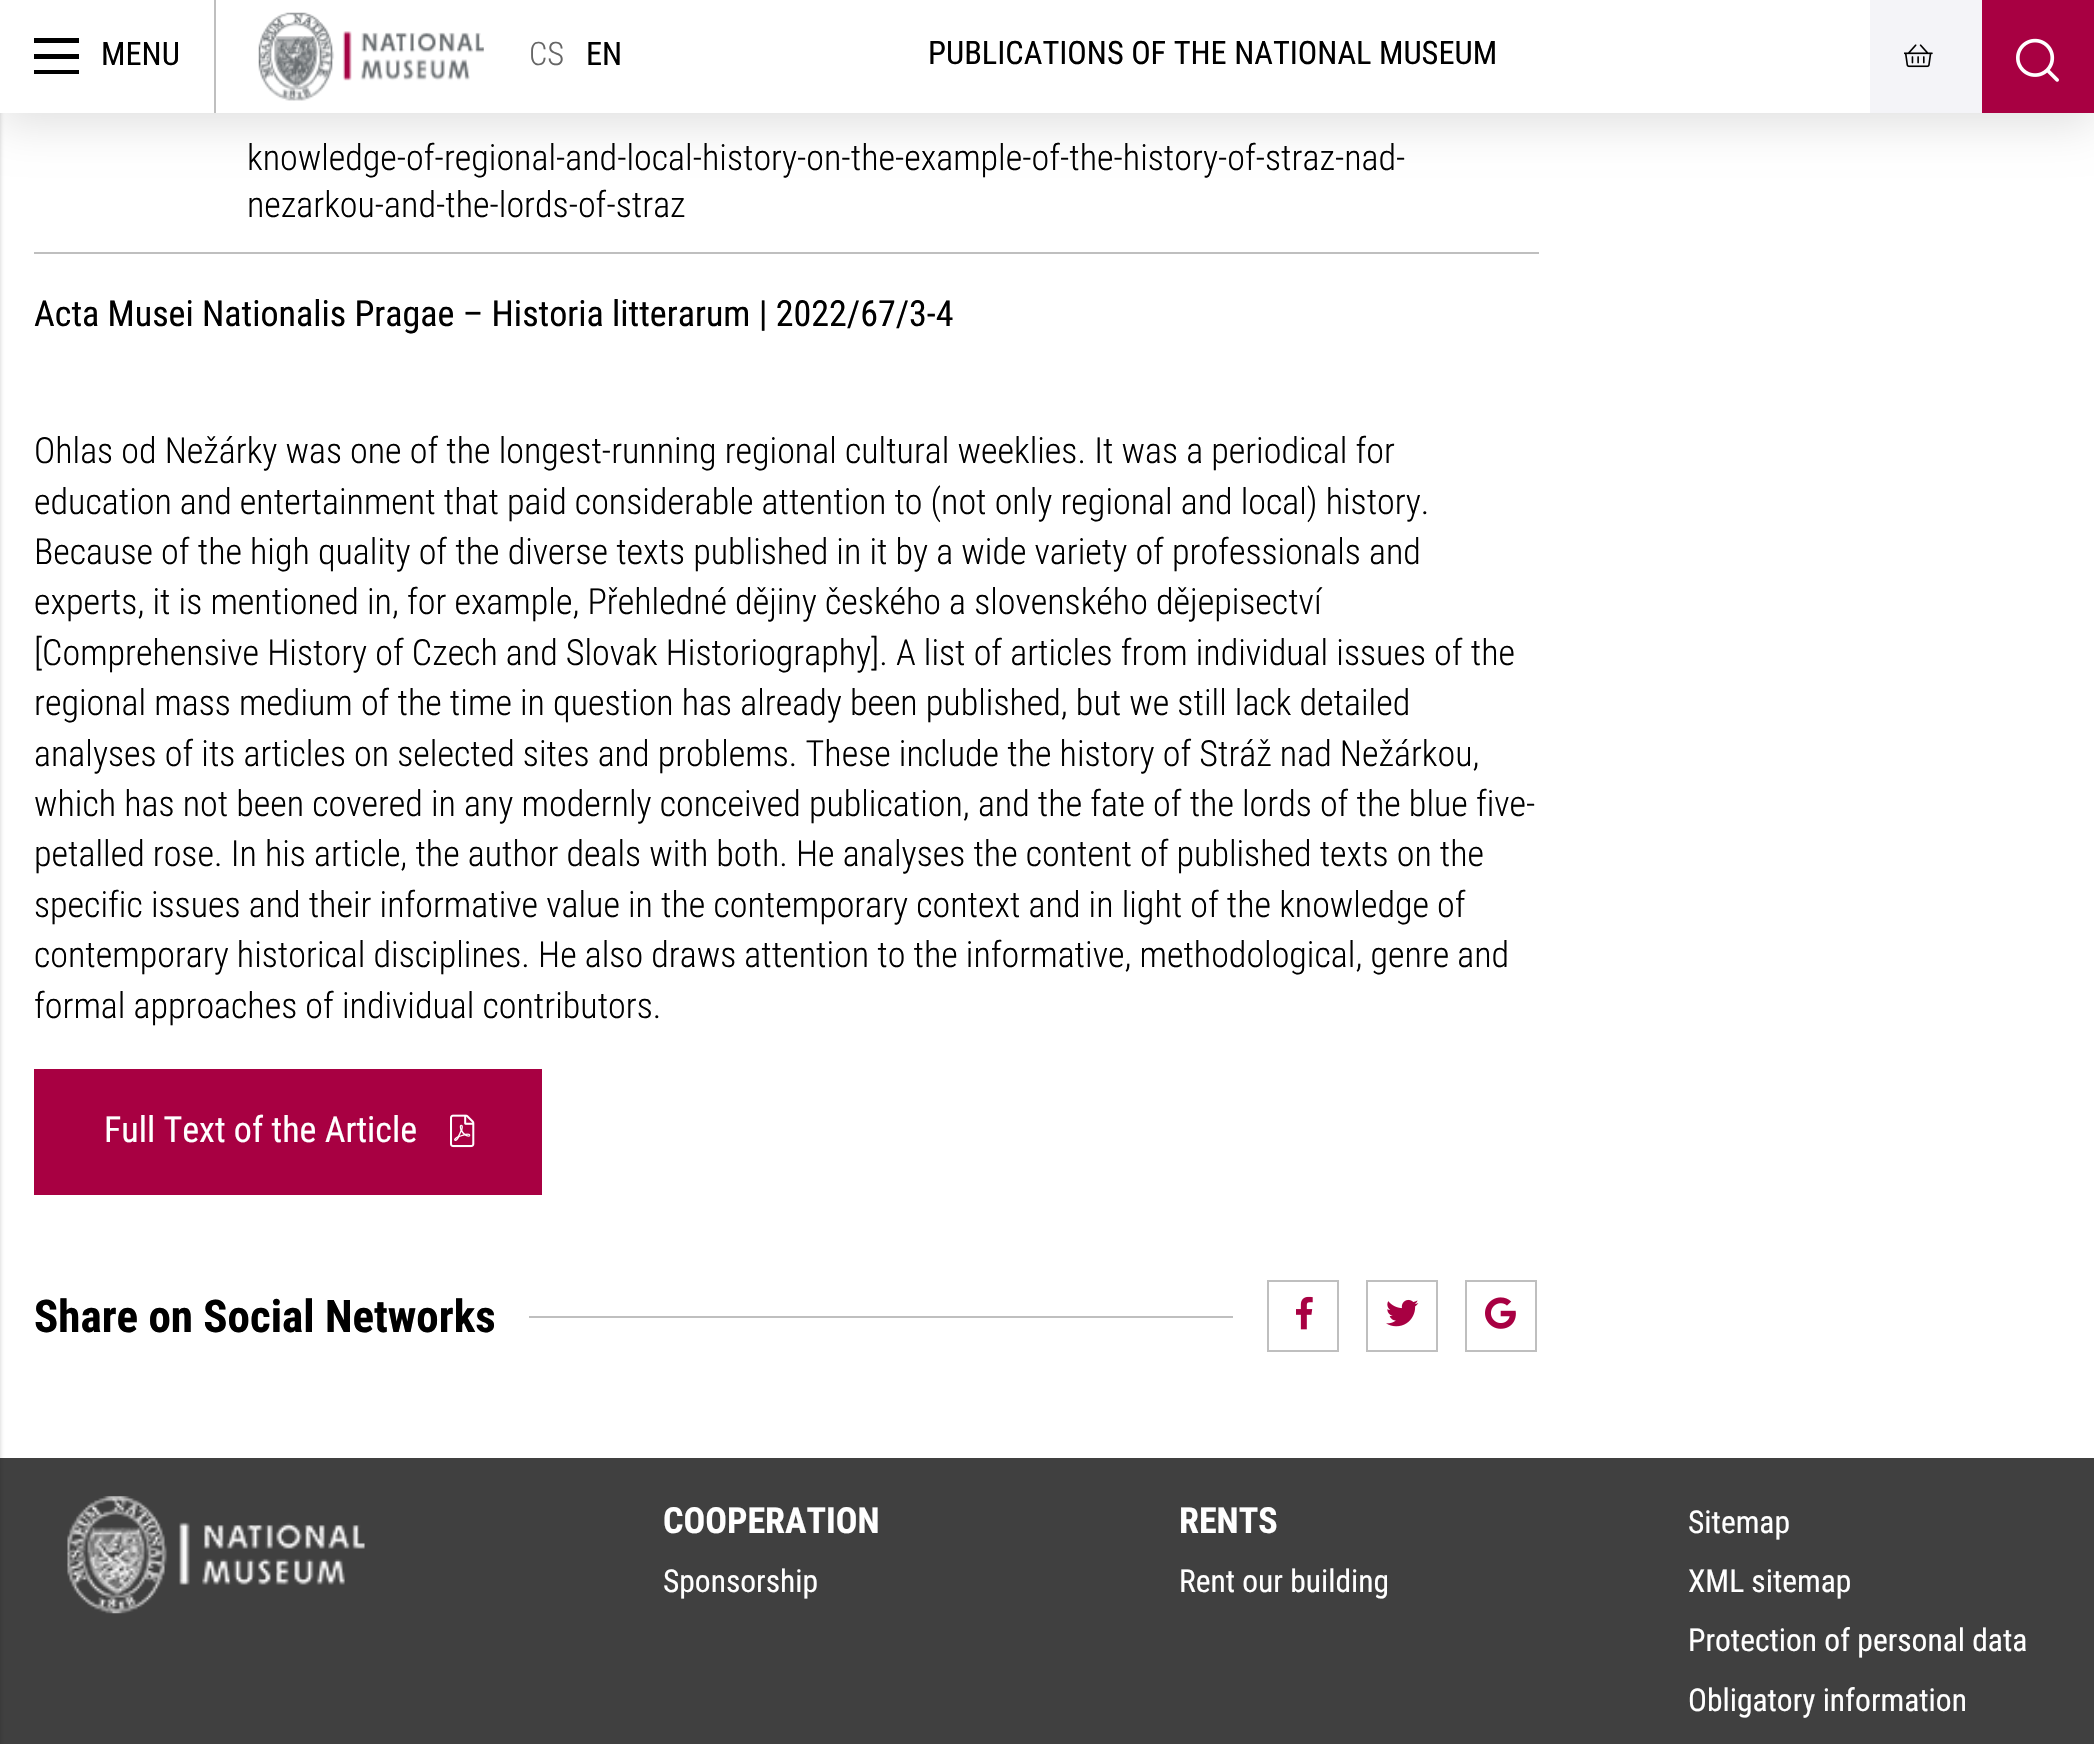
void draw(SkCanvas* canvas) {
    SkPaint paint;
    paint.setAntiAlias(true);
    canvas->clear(0xFFFFFFFF);
    paint.setColor(0x1F000000);
    paint.setMaskFilter(SkMaskFilter::MakeBlur(kNormal_SkBlurStyle, 22.5f));
    canvas->drawRect(SkRect::MakeXYWH(0, 11, 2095, 113), paint);
    paint.setMaskFilter(nullptr);
    paint.setColor(0xFFFFFFFF);
    canvas->drawRect(SkRect::MakeXYWH(216, 0, 1654, 113), paint);
    paint.setColor(0xFF404040);
    canvas->drawRect(SkRect::MakeXYWH(0, 1458, 2094, 286), paint);
    paint.setColor(0x33000000);
    paint.setMaskFilter(SkMaskFilter::MakeBlur(kNormal_SkBlurStyle, 2));
    canvas->drawRect(SkRect::MakeXYWH(-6, 5, 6, 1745), paint);
    paint.setMaskFilter(nullptr);
    paint.setColor(0xFFFFFFFF);
    canvas->drawRect(SkRect::MakeXYWH(0, 0, 214, 113), paint);
    paint.setColor(0xFFBFBFBF);
    canvas->drawRect(SkRect::MakeXYWH(214, 0, 2, 113), paint);
    paint.setColor(0xFF000000);
    canvas->drawRect(SkRect::MakeXYWH(34, 38, 45, 5), paint);
    canvas->drawRect(SkRect::MakeXYWH(34, 54, 45, 5), paint);
    canvas->drawRect(SkRect::MakeXYWH(34, 70, 45, 4), paint);
    SkFont font1(fontMgr->matchFamilyStyle("Roboto Condensed", SkFontStyle::Normal()), 32.4f);
    font1.setSubpixel(true);
    canvas->drawString("MENU", 101, 65, font1, paint);
    canvas->drawImageRect(SkImages::DeferredFromEncodedData(SkData::MakeFromFileName("img1.png")), SkRect::MakeXYWH(258, 12, 226, 89), SkSamplingOptions());
    SkFont font2(fontMgr->matchFamilyStyle("Roboto Condensed", SkFontStyle(300, SkFontStyle::kNormal_Width, SkFontStyle::kUpright_Slant)), 32.4f);
    font2.setSubpixel(true);
    paint.setColor(0xFF666666);
    canvas->drawString("CS", 529, 65, font2, paint);
    paint.setColor(0xFF000000);
    canvas->drawString("EN", 586, 65, font1, paint);
    canvas->drawString("PUBLICATIONS OF THE NATIONAL MUSEUM", 928, 64, font1, paint);
    paint.setColor(0xFFF4F4F8);
    canvas->drawRect(SkRect::MakeXYWH(1870, 0, 112, 113), paint);
    canvas->drawImageRect(SkImages::DeferredFromEncodedData(SkData::MakeFromFileName("img2.png")), SkRect::MakeXYWH(1904, 44, 29, 24), SkSamplingOptions());
    paint.setColor(0xFFA80042);
    canvas->drawRect(SkRect::MakeXYWH(1982, 0, 112, 113), paint);
    canvas->drawImageRect(SkImages::DeferredFromEncodedData(SkData::MakeFromFileName("img3.png")), SkRect::MakeXYWH(2016, 38, 43, 44), SkSamplingOptions());
    paint.setColor(0xFFBFBFBF);
    canvas->drawRect(SkRect::MakeXYWH(34, 252, 1505, 2), paint);
    SkFont font3(fontMgr->matchFamilyStyle("Roboto Condensed", SkFontStyle(300, SkFontStyle::kNormal_Width, SkFontStyle::kUpright_Slant)), 36);
    font3.setSubpixel(true);
    paint.setColor(0xFF000000);
    canvas->drawString("knowledge-of-regional-and-local-history-on-the-example-of-the-history-of-straz-nad-", 247, 170, font3, paint);
    canvas->drawString("nezarkou-and-the-lords-of-straz", 247, 217, font3, paint);
    SkFont font4(fontMgr->matchFamilyStyle("Roboto Condensed", SkFontStyle::Normal()), 36);
    font4.setSubpixel(true);
    canvas->drawString("Acta Musei Nationalis Pragae – Historia litterarum | 2022/67/3-4", 34, 326, font4, paint);
    canvas->drawString("Ohlas od Nežárky was one of the longest-running regional cultural weeklies. It was a periodical for", 34, 463, font3, paint);
    canvas->drawString("education and entertainment that paid considerable attention to (not only regional and local) history.", 34, 514, font3, paint);
    canvas->drawString("Because of the high quality of the diverse texts published in it by a wide variety of professionals and", 34, 564, font3, paint);
    canvas->drawString("experts, it is mentioned in, for example, Přehledné dějiny českého a slovenského dějepisectví", 34, 614, font3, paint);
    canvas->drawString("[Comprehensive History of Czech and Slovak Historiography]. A list of articles from individual issues of the", 34, 665, font3, paint);
    canvas->drawString("regional mass medium of the time in question has already been published, but we still lack detailed", 34, 715, font3, paint);
    canvas->drawString("analyses of its articles on selected sites and problems. These include the history of Stráž nad Nežárkou,", 34, 766, font3, paint);
    canvas->drawString("which has not been covered in any modernly conceived publication, and the fate of the lords of the blue five-", 34, 816, font3, paint);
    canvas->drawString("petalled rose. In his article, the author deals with both. He analyses the content of published texts on the", 34, 866, font3, paint);
    canvas->drawString("specific issues and their informative value in the contemporary context and in light of the knowledge of", 34, 917, font3, paint);
    canvas->drawString("contemporary historical disciplines. He also draws attention to the informative, methodological, genre and", 34, 967, font3, paint);
    canvas->drawString("formal approaches of individual contributors.", 34, 1018, font3, paint);
    paint.setColor(0xFFA80042);
    canvas->drawRect(SkRect::MakeXYWH(34, 1069, 508, 126), paint);
    paint.setColor(0xFFFFFFFF);
    canvas->drawString("Full Text of the Article", 104, 1142, font4, paint);
    canvas->drawImageRect(SkImages::DeferredFromEncodedData(SkData::MakeFromFileName("img4.png")), SkRect::MakeXYWH(450, 1114, 25, 34), SkSamplingOptions());
    SkFont font5(fontMgr->matchFamilyStyle("Roboto Condensed", SkFontStyle::Bold()), 45);
    font5.setSubpixel(true);
    paint.setColor(0xFF000000);
    canvas->drawString("Share on Social Networks", 34, 1332, font5, paint);
    paint.setColor(0xFFBFBFBF);
    canvas->drawRect(SkRect::MakeXYWH(529, 1316, 704, 2), paint);
    paint.setStyle(SkPaint::kStroke_Style);
    paint.setStrokeWidth(2);
    canvas->drawRect(SkRect::MakeXYWH(1268, 1281, 70, 70), paint);
    canvas->drawImageRect(SkImages::DeferredFromEncodedData(SkData::MakeFromFileName("img5.png")), SkRect::MakeXYWH(1296, 1296, 17, 34), SkSamplingOptions());
    canvas->drawRect(SkRect::MakeXYWH(1367, 1281, 70, 70), paint);
    canvas->drawImageRect(SkImages::DeferredFromEncodedData(SkData::MakeFromFileName("img6.png")), SkRect::MakeXYWH(1386, 1299, 33, 28), SkSamplingOptions());
    canvas->drawRect(SkRect::MakeXYWH(1466, 1281, 70, 70), paint);
    canvas->drawImageRect(SkImages::DeferredFromEncodedData(SkData::MakeFromFileName("img7.png")), SkRect::MakeXYWH(1485, 1297, 31, 32), SkSamplingOptions());
    canvas->drawImageRect(SkImages::DeferredFromEncodedData(SkData::MakeFromFileName("img8.png")), SkRect::MakeXYWH(67, 1496, 298, 118), SkSamplingOptions());
    SkFont font6(fontMgr->matchFamilyStyle("Roboto Condensed", SkFontStyle::Bold()), 36);
    font6.setSubpixel(true);
    paint.setStyle(SkPaint::kFill_Style);
    paint.setColor(0xFFFFFFFF);
    canvas->drawString("COOPERATION", 663, 1533, font6, paint);
    SkFont font7(fontMgr->matchFamilyStyle("Roboto Condensed", SkFontStyle::Normal()), 31.5f);
    font7.setSubpixel(true);
    canvas->drawString("Sponsorship", 663, 1592, font7, paint);
    canvas->drawString("RENTS", 1179, 1533, font6, paint);
    canvas->drawString("Rent our building", 1179, 1592, font7, paint);
    canvas->drawString("Sitemap", 1688, 1533, font7, paint);
    canvas->drawString("XML sitemap", 1688, 1592, font7, paint);
    canvas->drawString("Protection of personal data", 1688, 1651, font7, paint);
    canvas->drawString("Obligatory information", 1688, 1711, font7, paint);
}
